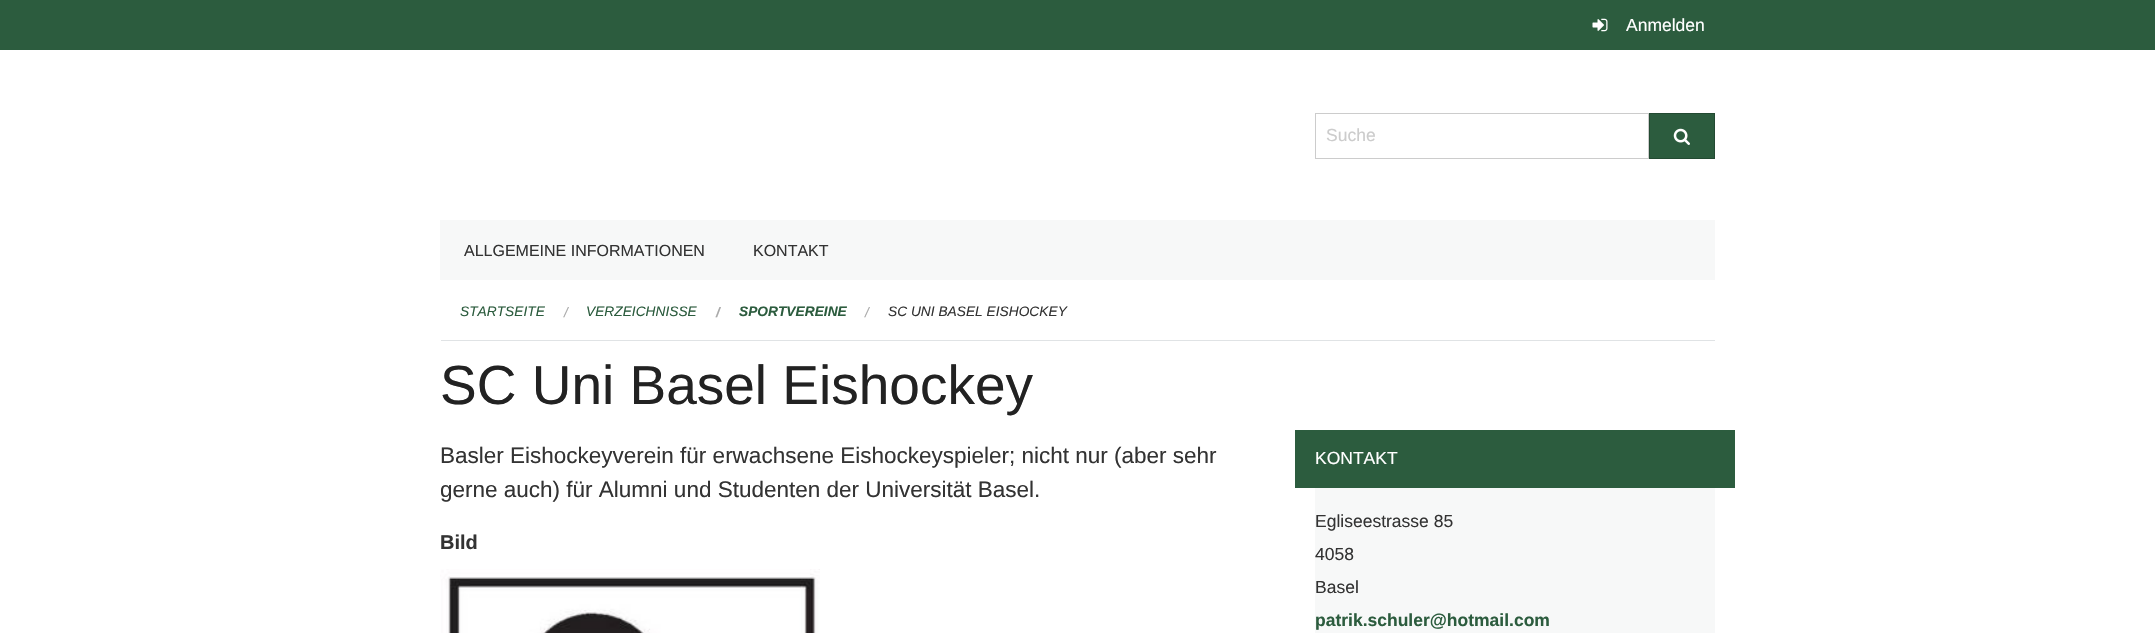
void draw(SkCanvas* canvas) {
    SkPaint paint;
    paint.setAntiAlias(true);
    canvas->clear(0xFFFFFFFF);
    paint.setColor(0xFF2C5C3E);
    canvas->drawRect(SkRect::MakeXYWH(0, 0, 2155, 50), paint);
    canvas->drawImageRect(SkImages::DeferredFromEncodedData(SkData::MakeFromFileName("img1.png")), SkRect::MakeXYWH(1592, 18, 16, 14), SkSamplingOptions());
    SkFont font1(fontMgr->matchFamilyStyle("Liberation Sans", SkFontStyle::Normal()), 17.5f);
    font1.setSubpixel(true);
    paint.setColor(0xFFFFFFFF);
    canvas->drawString("Anmelden", 1626, 31, font1, paint);
    paint.setStyle(SkPaint::kStroke_Style);
    paint.setStrokeWidth(1);
    paint.setColor(0xFFCCCCCC);
    canvas->drawRect(SkRect::MakeXYWH(1315.5f, 113.5f, 333, 45), paint);
    paint.setStyle(SkPaint::kFill_Style);
    canvas->drawString("Suche", 1326, 141, font1, paint);
    paint.setColor(0xFF2C5C3E);
    canvas->drawRect(SkRect::MakeXYWH(1649.5f, 113.5f, 65, 45), paint);
    paint.setStyle(SkPaint::kStroke_Style);
    paint.setColor(0xFF234A32);
    canvas->drawRect(SkRect::MakeXYWH(1649.5f, 113.5f, 65, 45), paint);
    canvas->drawImageRect(SkImages::DeferredFromEncodedData(SkData::MakeFromFileName("img2.png")), SkRect::MakeXYWH(1673, 128, 17, 17), SkSamplingOptions());
    paint.setStyle(SkPaint::kFill_Style);
    paint.setColor(0xFFF7F8F8);
    canvas->drawRect(SkRect::MakeXYWH(440, 220, 1275, 60), paint);
    SkFont font2(fontMgr->matchFamilyStyle("Liberation Sans", SkFontStyle::Normal()), 16);
    font2.setSubpixel(true);
    paint.setColor(0xFF333333);
    canvas->drawString("ALLGEMEINE INFORMATIONEN", 464, 256, font2, paint);
    canvas->drawString("KONTAKT", 753, 256, font2, paint);
    paint.setColor(0xFFE0E3E5);
    canvas->drawRect(SkRect::MakeXYWH(441, 340, 1274, 1), paint);
    SkFont font3(fontMgr->matchFamilyStyle("Liberation Sans", SkFontStyle::Italic()), 13.75f);
    font3.setSubpixel(true);
    paint.setColor(0xFF2C5C3E);
    canvas->drawString("STARTSEITE", 460, 316, font3, paint);
    paint.setColor(0xFFAAAAAA);
    canvas->drawString("/", 564, 317, font3, paint);
    paint.setColor(0xFF2C5C3E);
    canvas->drawString("VERZEICHNISSE", 586, 316, font3, paint);
    SkFont font4(fontMgr->matchFamilyStyle("Liberation Sans", SkFontStyle::BoldItalic()), 13.75f);
    font4.setSubpixel(true);
    paint.setColor(0xFFAAAAAA);
    canvas->drawString("/", 716, 317, font4, paint);
    paint.setColor(0xFF2C5C3E);
    canvas->drawString("SPORTVEREINE", 739, 316, font4, paint);
    paint.setColor(0xFFAAAAAA);
    canvas->drawString("/", 865, 317, font3, paint);
    paint.setColor(0xFF333333);
    canvas->drawString("SC UNI BASEL EISHOCKEY", 888, 316, font3, paint);
    SkFont font5(fontMgr->matchFamilyStyle("Liberation Sans", SkFontStyle::Normal()), 55);
    font5.setSubpixel(true);
    paint.setColor(0xFF222222);
    canvas->drawString("SC Uni Basel Eishockey", 440, 404, font5, paint);
    SkFont font6(fontMgr->matchFamilyStyle("Liberation Sans", SkFontStyle::Normal()), 22.5f);
    font6.setSubpixel(true);
    paint.setColor(0xFF333333);
    canvas->drawString("Basler Eishockeyverein für erwachsene Eishockeyspieler; nicht nur (aber sehr", 440, 463, font6, paint);
    canvas->drawString("gerne auch) für Alumni und Studenten der Universität Basel.", 440, 497, font6, paint);
    SkFont font7(fontMgr->matchFamilyStyle("Liberation Sans", SkFontStyle::Bold()), 20);
    font7.setSubpixel(true);
    canvas->drawString("Bild", 440, 549, font7, paint);
    canvas->drawImageRect(SkImages::DeferredFromEncodedData(SkData::MakeFromFileName("img3.png")), SkRect::MakeXYWH(440, 569, 380, 64), SkSamplingOptions());
    paint.setColor(0xFFF7F8F8);
    canvas->drawRect(SkRect::MakeXYWH(1315, 488, 400, 145), paint);
    paint.setColor(0xFF2C5C3E);
    canvas->drawRect(SkRect::MakeXYWH(1295, 430, 440, 58), paint);
    paint.setColor(0xFFFFFFFF);
    canvas->drawString("KONTAKT", 1315, 464, font1, paint);
    paint.setColor(0xFF333333);
    canvas->drawString("Egliseestrasse 85", 1315, 527, font1, paint);
    canvas->drawString("4058", 1315, 560, font1, paint);
    canvas->drawString("Basel", 1315, 593, font1, paint);
    SkFont font8(fontMgr->matchFamilyStyle("Liberation Sans", SkFontStyle::Bold()), 17.5f);
    font8.setSubpixel(true);
    paint.setColor(0xFF2C5C3E);
    canvas->drawString("patrik.schuler@hotmail.com", 1315, 626, font8, paint);
}
